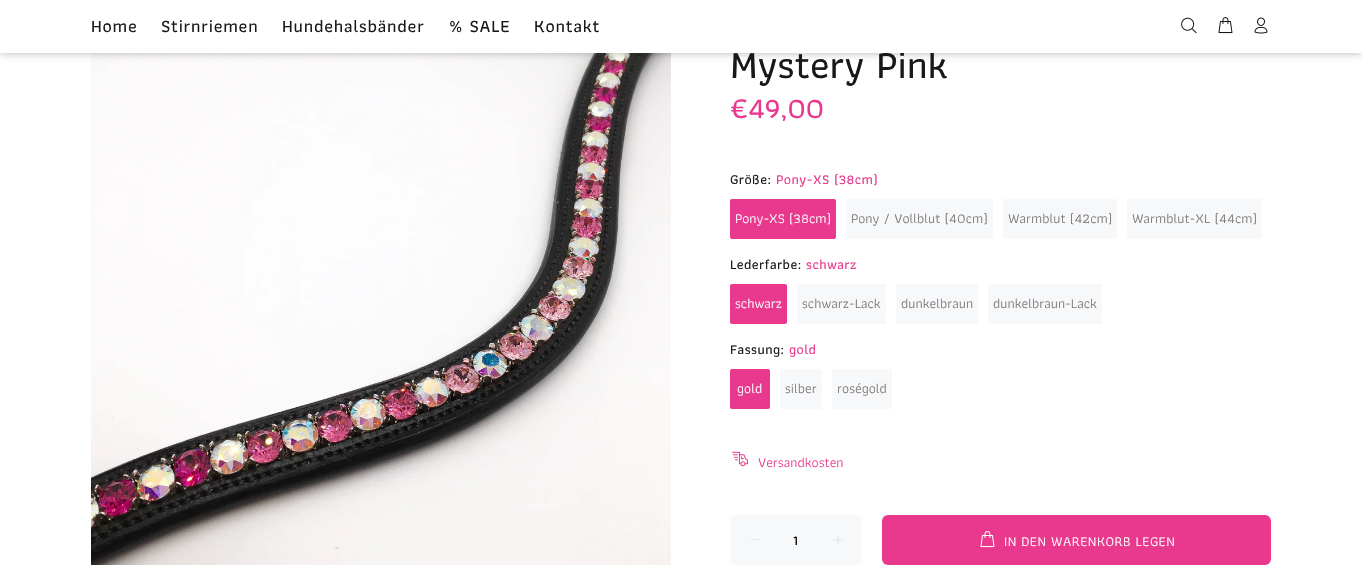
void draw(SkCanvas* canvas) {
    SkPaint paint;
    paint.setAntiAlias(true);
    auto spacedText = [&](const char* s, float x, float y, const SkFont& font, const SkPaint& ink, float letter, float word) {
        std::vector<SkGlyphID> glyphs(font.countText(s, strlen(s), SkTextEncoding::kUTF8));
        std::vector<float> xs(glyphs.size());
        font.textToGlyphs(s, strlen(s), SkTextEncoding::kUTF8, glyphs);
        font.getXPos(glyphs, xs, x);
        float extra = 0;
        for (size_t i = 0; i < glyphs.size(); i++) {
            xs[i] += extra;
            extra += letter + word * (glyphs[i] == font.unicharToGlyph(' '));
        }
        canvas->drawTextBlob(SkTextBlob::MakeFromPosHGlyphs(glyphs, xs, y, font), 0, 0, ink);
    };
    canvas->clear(0xFFFFFFFF);
    canvas->drawImageRect(SkImages::DeferredFromEncodedData(SkData::MakeFromFileName("img4.png")), SkRect::MakeXYWH(91, 53, 580, 512), SkSamplingOptions());
    paint.setColor(0x4D000000);
    paint.setMaskFilter(SkMaskFilter::MakeBlur(kNormal_SkBlurStyle, 4));
    canvas->drawRect(SkRect::MakeXYWH(0, 0, 1362, 53), paint);
    paint.setMaskFilter(nullptr);
    SkFont font1(fontMgr->matchFamilyStyle("Athiti", SkFontStyle(500, SkFontStyle::kNormal_Width, SkFontStyle::kUpright_Slant)), 40);
    font1.setSubpixel(true);
    paint.setColor(0xFF191919);
    canvas->drawString("Mystery Pink", 730, 78, font1, paint);
    paint.setColor(0xFFFFFFFF);
    canvas->drawRect(SkRect::MakeXYWH(0, 0, 1362, 53), paint);
    SkFont font2(fontMgr->matchFamilyStyle("Athiti", SkFontStyle(500, SkFontStyle::kNormal_Width, SkFontStyle::kUpright_Slant)), 18);
    font2.setSubpixel(true);
    paint.setColor(0xFF191919);
    spacedText("Home", 91, 32, font2, paint, 0.75f, 0);
    spacedText("Stirnriemen", 161, 32, font2, paint, 0.75f, 0);
    spacedText("Hundehalsbänder", 282, 32, font2, paint, 0.75f, 0);
    spacedText("% SALE", 449, 32, font2, paint, 0.75f, 0);
    spacedText("Kontakt", 534, 32, font2, paint, 0.75f, 0);
    canvas->drawImageRect(SkImages::DeferredFromEncodedData(SkData::MakeFromFileName("img1.png")), SkRect::MakeXYWH(1181, 17, 16, 17), SkSamplingOptions());
    canvas->drawImageRect(SkImages::DeferredFromEncodedData(SkData::MakeFromFileName("img2.png")), SkRect::MakeXYWH(1218, 17, 15, 17), SkSamplingOptions());
    canvas->drawImageRect(SkImages::DeferredFromEncodedData(SkData::MakeFromFileName("img3.png")), SkRect::MakeXYWH(1254, 17, 14, 17), SkSamplingOptions());
    SkFont font3(fontMgr->matchFamilyStyle("Athiti", SkFontStyle(500, SkFontStyle::kNormal_Width, SkFontStyle::kUpright_Slant)), 30);
    font3.setSubpixel(true);
    paint.setColor(0xFFE9398E);
    canvas->drawString("€49,00", 730, 118, font3, paint);
    SkFont font4(fontMgr->matchFamilyStyle("Athiti", SkFontStyle(500, SkFontStyle::kNormal_Width, SkFontStyle::kUpright_Slant)), 14);
    font4.setSubpixel(true);
    paint.setColor(0xFF191919);
    spacedText("Größe:", 730, 184, font4, paint, 0.4f, 0);
    paint.setColor(0xFFE9398E);
    spacedText("Pony-XS (38cm)", 776, 184, font4, paint, 0.4f, 0);
    canvas->drawRoundRect(SkRect::MakeXYWH(730, 199, 106, 40), 2, 2, paint);
    SkFont font5(fontMgr->matchFamilyStyle("Athiti", SkFontStyle::Normal()), 14);
    font5.setSubpixel(true);
    paint.setColor(0xFFFFFFFF);
    canvas->drawString("Pony-XS (38cm)", 735, 223, font5, paint);
    paint.setColor(0xFFF7F8FA);
    canvas->drawRoundRect(SkRect::MakeXYWH(846, 199, 147, 40), 2, 2, paint);
    paint.setColor(0xFF777777);
    canvas->drawString("Pony / Vollblut (40cm)", 851, 223, font5, paint);
    paint.setColor(0xFFF7F8FA);
    canvas->drawRoundRect(SkRect::MakeXYWH(1003, 199, 114, 40), 2, 2, paint);
    paint.setColor(0xFF777777);
    canvas->drawString("Warmblut (42cm)", 1008, 223, font5, paint);
    paint.setColor(0xFFF7F8FA);
    canvas->drawRoundRect(SkRect::MakeXYWH(1127, 199, 135, 40), 2, 2, paint);
    paint.setColor(0xFF777777);
    canvas->drawString("Warmblut-XL (44cm)", 1132, 223, font5, paint);
    paint.setColor(0xFF191919);
    spacedText("Lederfarbe:", 730, 269, font4, paint, 0.4f, 0);
    paint.setColor(0xFFE9398E);
    spacedText("schwarz", 806, 269, font4, paint, 0.4f, 0);
    canvas->drawRoundRect(SkRect::MakeXYWH(730, 284, 57, 40), 2, 2, paint);
    paint.setColor(0xFFFFFFFF);
    canvas->drawString("schwarz", 735, 308, font5, paint);
    paint.setColor(0xFFF7F8FA);
    canvas->drawRoundRect(SkRect::MakeXYWH(797, 284, 89, 40), 2, 2, paint);
    paint.setColor(0xFF777777);
    canvas->drawString("schwarz-Lack", 802, 308, font5, paint);
    paint.setColor(0xFFF7F8FA);
    canvas->drawRoundRect(SkRect::MakeXYWH(896, 284, 82, 40), 2, 2, paint);
    paint.setColor(0xFF777777);
    canvas->drawString("dunkelbraun", 901, 308, font5, paint);
    paint.setColor(0xFFF7F8FA);
    canvas->drawRoundRect(SkRect::MakeXYWH(988, 284, 114, 40), 2, 2, paint);
    paint.setColor(0xFF777777);
    canvas->drawString("dunkelbraun-Lack", 993, 308, font5, paint);
    paint.setColor(0xFF191919);
    spacedText("Fassung:", 730, 354, font4, paint, 0.4f, 0);
    paint.setColor(0xFFE9398E);
    spacedText("gold", 789, 354, font4, paint, 0.4f, 0);
    canvas->drawRoundRect(SkRect::MakeXYWH(730, 369, 40, 40), 2, 2, paint);
    paint.setColor(0xFFFFFFFF);
    canvas->drawString("gold", 737, 393, font5, paint);
    paint.setColor(0xFFF7F8FA);
    canvas->drawRoundRect(SkRect::MakeXYWH(780, 369, 42, 40), 2, 2, paint);
    paint.setColor(0xFF777777);
    canvas->drawString("silber", 785, 393, font5, paint);
    paint.setColor(0xFFF7F8FA);
    canvas->drawRoundRect(SkRect::MakeXYWH(832, 369, 60, 40), 2, 2, paint);
    paint.setColor(0xFF777777);
    canvas->drawString("roségold", 837, 393, font5, paint);
    canvas->drawImageRect(SkImages::DeferredFromEncodedData(SkData::MakeFromFileName("img5.png")), SkRect::MakeXYWH(732, 451, 16, 16), SkSamplingOptions());
    paint.setColor(0xFFE9398E);
    canvas->drawString("Versandkosten", 758, 467, font5, paint);
    paint.setColor(0xFFF7F8FA);
    canvas->drawRoundRect(SkRect::MakeXYWH(730, 515, 132, 50), 6, 6, paint);
    paint.setColor(0xFFD8D8D8);
    canvas->drawPath(SkPathBuilder().moveTo(759.5f, 539.5f).lineTo(759.5f, 540).lineTo(750.5f, 540).lineTo(751, 539.5f).close().detach(), paint);
    paint.setColor(0xFF000000);
    canvas->drawString("1", 793, 545, font4, paint);
    canvas->drawImageRect(SkImages::DeferredFromEncodedData(SkData::MakeFromFileName("img6.png")), SkRect::MakeXYWH(833, 535, 10, 9), SkSamplingOptions());
    paint.setColor(0xFFE9398E);
    canvas->drawRoundRect(SkRect::MakeXYWH(882, 515, 389, 50), 6, 6, paint);
    canvas->drawImageRect(SkImages::DeferredFromEncodedData(SkData::MakeFromFileName("img7.png")), SkRect::MakeXYWH(980, 531, 15, 17), SkSamplingOptions());
    paint.setColor(0xFFFFFFFF);
    spacedText("IN DEN WARENKORB LEGEN", 1004, 546, font5, paint, 0.4f, 0);
}
